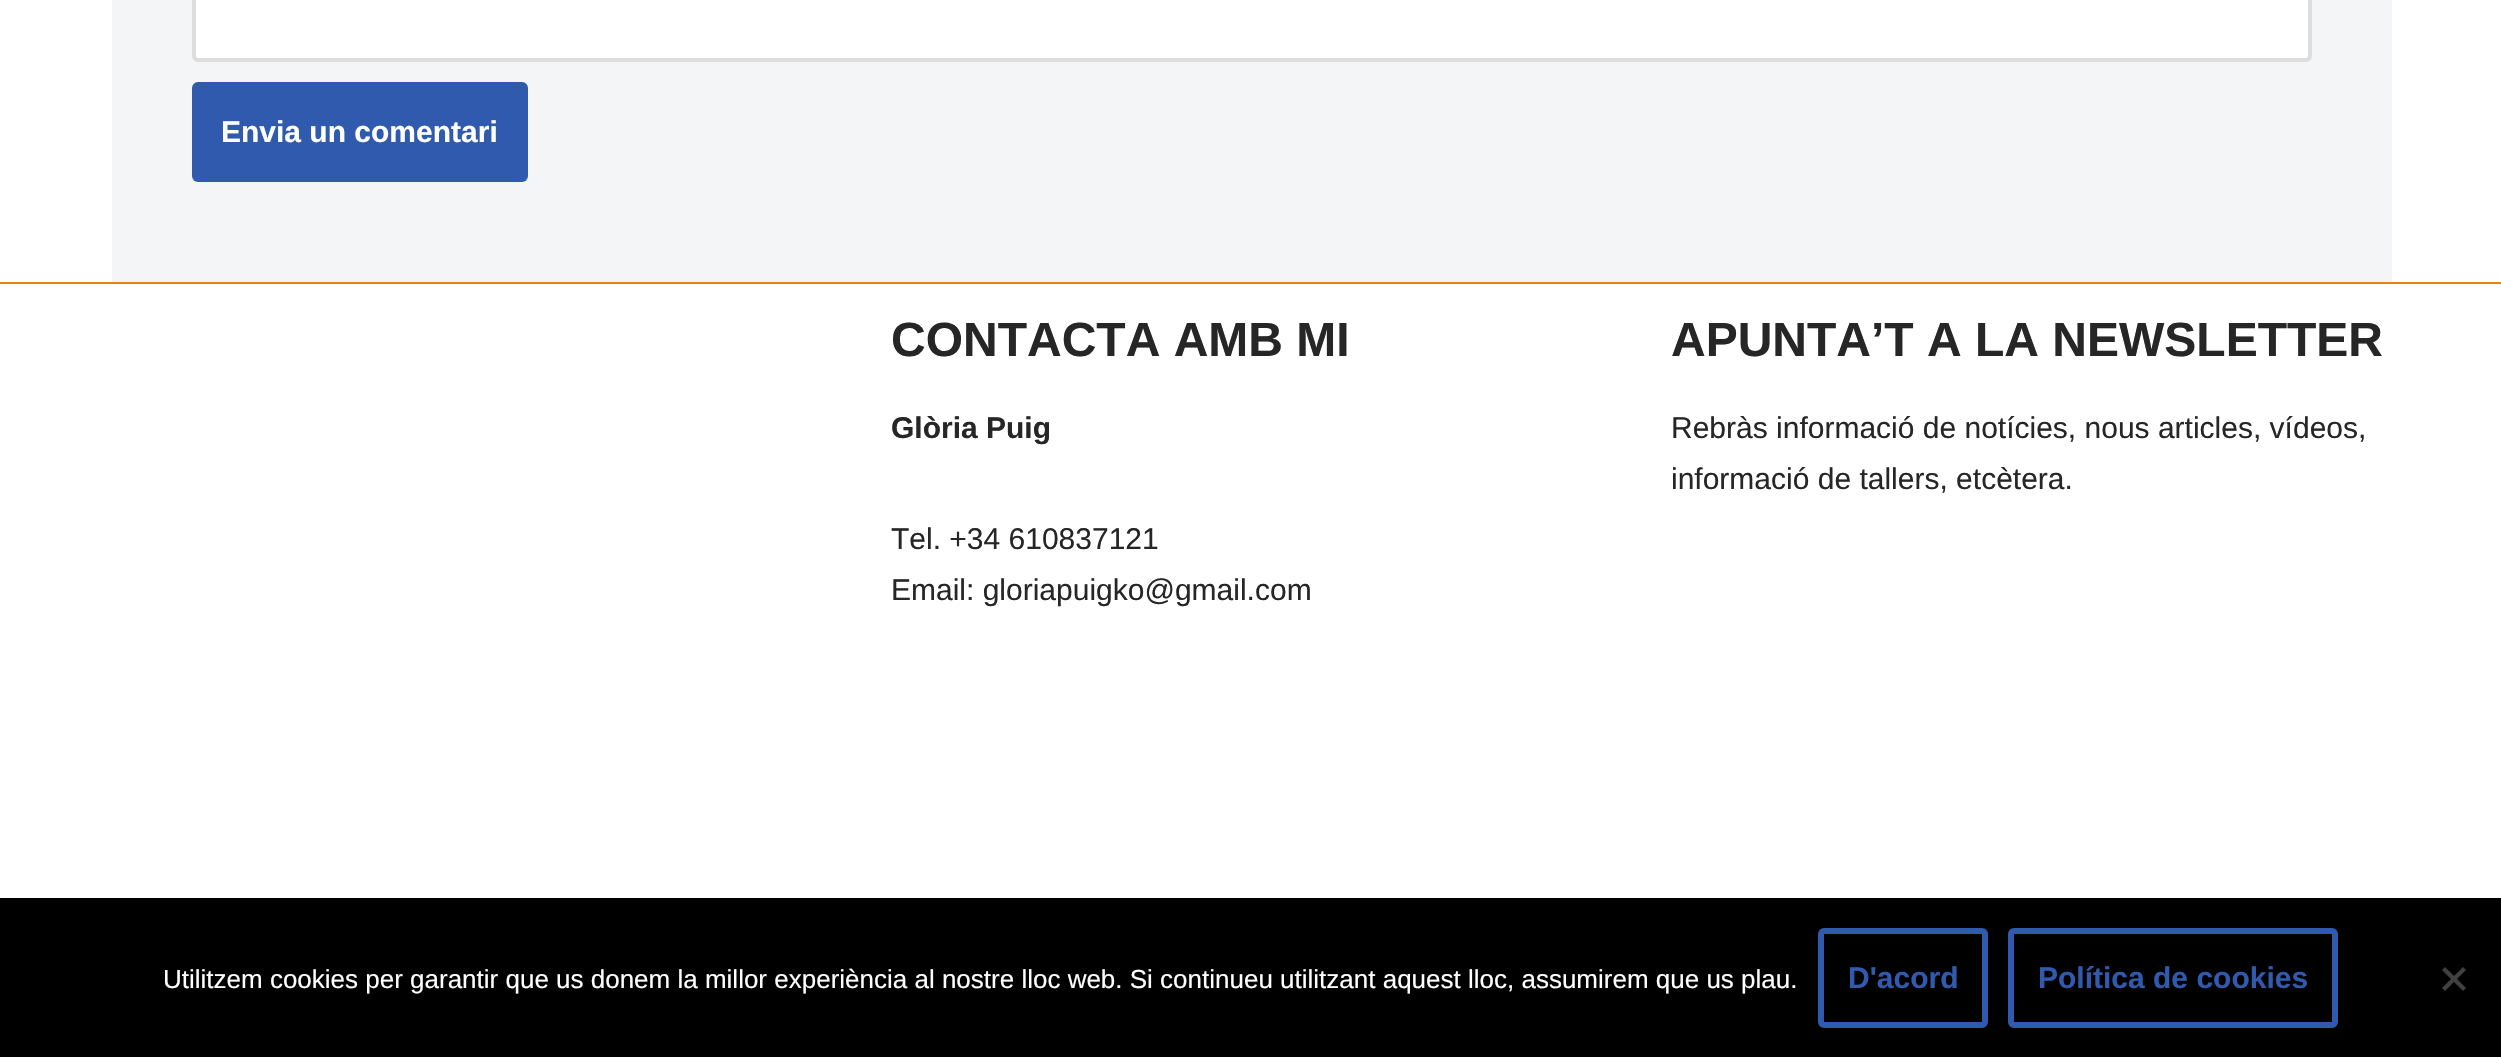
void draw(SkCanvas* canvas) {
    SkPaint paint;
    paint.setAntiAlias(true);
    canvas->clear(0xFFFFFFFF);
    paint.setColor(0xFFF4F5F7);
    canvas->drawRect(SkRect::MakeXYWH(112, 0, 2280, 282), paint);
    paint.setColor(0xFFFFFFFF);
    canvas->drawRoundRect(SkRect::MakeXYWH(194, -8, 2116, 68), 4, 4, paint);
    paint.setStyle(SkPaint::kStroke_Style);
    paint.setStrokeWidth(4);
    paint.setColor(0xFFDDDDDD);
    canvas->drawRoundRect(SkRect::MakeXYWH(194, -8, 2116, 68), 4, 4, paint);
    paint.setStyle(SkPaint::kFill_Style);
    paint.setColor(0xFF2F5AAE);
    canvas->drawRoundRect(SkRect::MakeXYWH(192, 82, 336, 100), 6, 6, paint);
    SkFont font1(fontMgr->matchFamilyStyle("Liberation Sans", SkFontStyle::Bold()), 30);
    font1.setSubpixel(true);
    paint.setColor(0xFFFFFFFF);
    canvas->drawString("Envia un comentari", 221, 142, font1, paint);
    paint.setColor(0xFFE98113);
    canvas->drawRect(SkRect::MakeXYWH(0, 282, 2501, 2), paint);
    SkFont font2(fontMgr->matchFamilyStyle("Liberation Sans", SkFontStyle::Bold()), 48);
    font2.setSubpixel(true);
    paint.setColor(0xFF272626);
    canvas->drawString("CONTACTA AMB MI", 891, 356, font2, paint);
    canvas->drawString("Glòria Puig", 891, 438, font1, paint);
    SkFont font3(fontMgr->matchFamilyStyle("Liberation Sans", SkFontStyle::Normal()), 30);
    font3.setSubpixel(true);
    canvas->drawString("Tel. +34 610837121", 891, 549, font3, paint);
    canvas->drawString("Email: gloriapuigko@gmail.com", 891, 600, font3, paint);
    canvas->drawString("APUNTA’T A LA NEWSLETTER", 1671, 356, font2, paint);
    canvas->drawString("Rebràs informació de notícies, nous articles, vídeos,", 1671, 438, font3, paint);
    canvas->drawString("informació de tallers, etcètera.", 1671, 489, font3, paint);
    paint.setColor(0xFF000000);
    canvas->drawRect(SkRect::MakeXYWH(0, 898, 2501, 159), paint);
    SkFont font4(fontMgr->matchFamilyStyle("Liberation Sans", SkFontStyle::Normal()), 26);
    font4.setSubpixel(true);
    paint.setColor(0xFFFFFFFF);
    canvas->drawString("Utilitzem cookies per garantir que us donem la millor experiència al nostre lloc web. Si continueu utilitzant aquest lloc, assumirem que us plau.", 163, 988, font4, paint);
    paint.setStyle(SkPaint::kStroke_Style);
    paint.setStrokeWidth(6);
    paint.setColor(0xFF2F5AAE);
    canvas->drawRoundRect(SkRect::MakeXYWH(1821, 931, 164, 94), 3, 3, paint);
    paint.setStyle(SkPaint::kFill_Style);
    canvas->drawString("D'acord", 1848, 988, font1, paint);
    paint.setStyle(SkPaint::kStroke_Style);
    canvas->drawRoundRect(SkRect::MakeXYWH(2011, 931, 324, 94), 3, 3, paint);
    paint.setStyle(SkPaint::kFill_Style);
    canvas->drawString("Política de cookies", 2038, 988, font1, paint);
    paint.setColor(0xFF404040);
    canvas->drawPath(SkPathBuilder().moveTo(2463, 967).lineTo(2466, 970).lineTo(2445, 991).lineTo(2442, 988).close().detach(), paint);
    canvas->drawPath(SkPathBuilder().moveTo(2442, 970).lineTo(2445, 967).lineTo(2466, 988).lineTo(2463, 991).close().detach(), paint);
}
